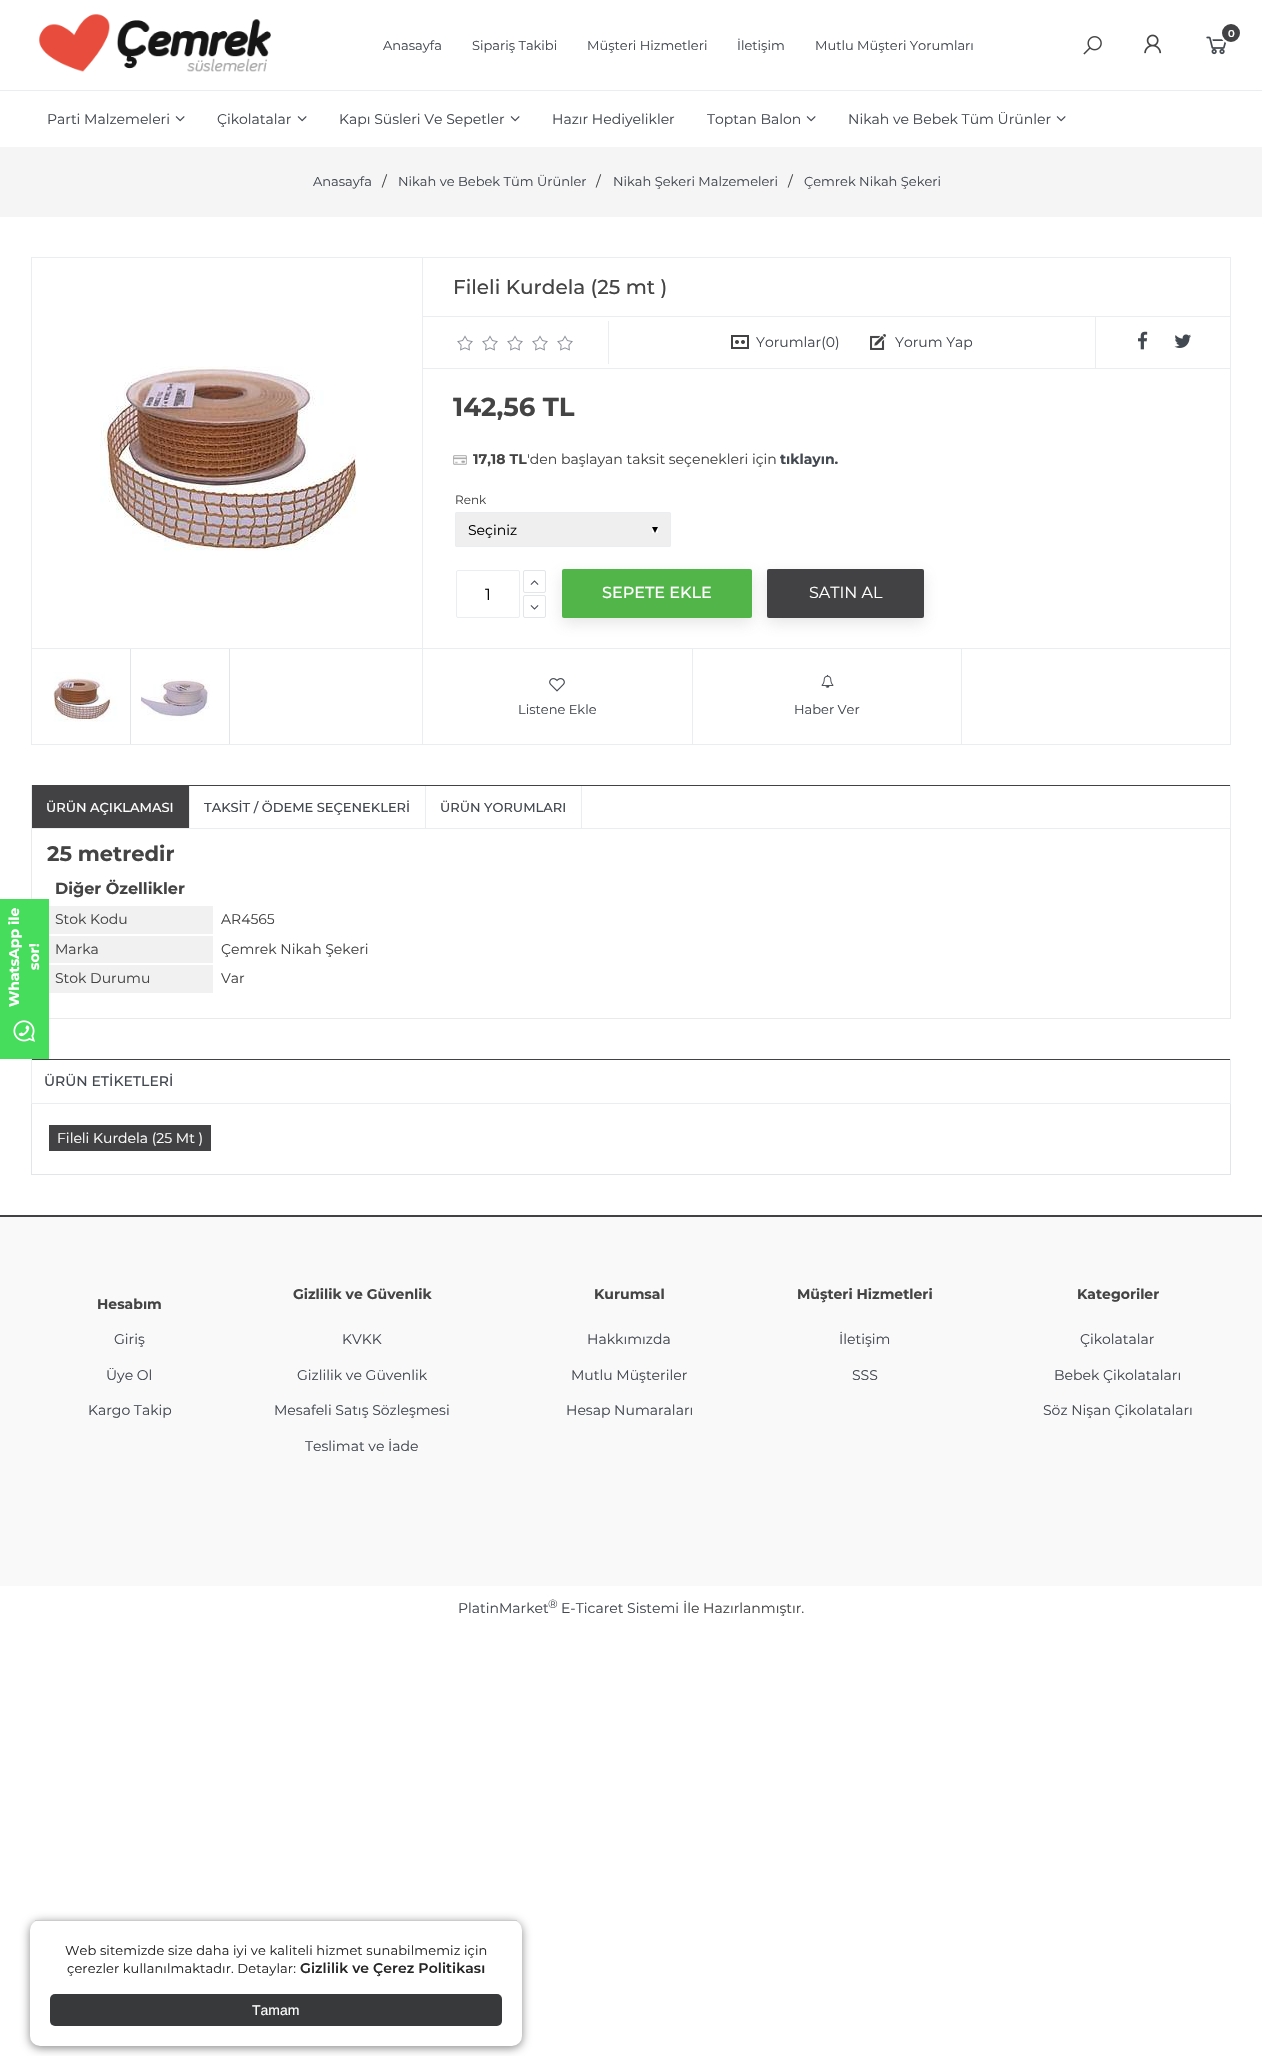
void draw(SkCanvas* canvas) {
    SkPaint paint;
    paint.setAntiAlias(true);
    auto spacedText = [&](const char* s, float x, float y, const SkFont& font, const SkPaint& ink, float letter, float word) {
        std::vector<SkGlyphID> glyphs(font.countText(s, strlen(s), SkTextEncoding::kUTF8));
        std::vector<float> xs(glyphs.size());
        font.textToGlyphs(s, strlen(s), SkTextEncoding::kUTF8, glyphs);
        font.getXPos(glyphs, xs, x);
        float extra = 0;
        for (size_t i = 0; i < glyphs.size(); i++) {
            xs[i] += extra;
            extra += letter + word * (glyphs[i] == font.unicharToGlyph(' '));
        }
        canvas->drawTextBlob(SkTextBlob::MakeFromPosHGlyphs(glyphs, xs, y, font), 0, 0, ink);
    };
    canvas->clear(0xFFFFFFFF);
    paint.setColor(0xFF46DD5C);
    canvas->drawRect(SkRect::MakeXYWH(0, 899, 49, 160), paint);
    canvas->drawImageRect(SkImages::DeferredFromEncodedData(SkData::MakeFromFileName("img1.png")), SkRect::MakeXYWH(39, 14, 232, 58), SkSamplingOptions());
    canvas->drawImageRect(SkImages::DeferredFromEncodedData(SkData::MakeFromFileName("img2.png")), SkRect::MakeXYWH(1083, 36, 19, 19), SkSamplingOptions());
    canvas->drawImageRect(SkImages::DeferredFromEncodedData(SkData::MakeFromFileName("img3.png")), SkRect::MakeXYWH(1144, 34, 18, 20), SkSamplingOptions());
    canvas->drawImageRect(SkImages::DeferredFromEncodedData(SkData::MakeFromFileName("img4.png")), SkRect::MakeXYWH(1206, 36, 21, 19), SkSamplingOptions());
    paint.setColor(0xFF424244);
    canvas->drawCircle(1231, 33, 10, paint);
    paint.setStyle(SkPaint::kStroke_Style);
    paint.setStrokeWidth(2);
    paint.setColor(0xFFFFFFFF);
    canvas->drawCircle(1231, 33, 10, paint);
    SkFont font1(fontMgr->matchFamilyStyle("Montserrat", SkFontStyle(600, SkFontStyle::kNormal_Width, SkFontStyle::kUpright_Slant)), 10);
    font1.setSubpixel(true);
    paint.setStyle(SkPaint::kFill_Style);
    canvas->drawString("0", 1228, 37, font1, paint);
    SkFont font2(fontMgr->matchFamilyStyle("Montserrat", SkFontStyle::Normal()), 13);
    font2.setSubpixel(true);
    paint.setColor(0xFF434950);
    canvas->drawString("Anasayfa", 383, 50, font2, paint);
    canvas->drawString("Sipariş Takibi", 472, 50, font2, paint);
    canvas->drawString("Müşteri Hizmetleri", 587, 50, font2, paint);
    canvas->drawString("İletişim", 737, 50, font2, paint);
    canvas->drawString("Mutlu Müşteri Yorumları", 815, 50, font2, paint);
    paint.setColor(0xFFEBEEF0);
    canvas->drawRect(SkRect::MakeXYWH(0, 90, 1262, 1), paint);
    SkFont font3(fontMgr->matchFamilyStyle("Montserrat", SkFontStyle::Normal()), 14);
    font3.setSubpixel(true);
    paint.setColor(0xFF434950);
    canvas->drawString("Parti Malzemeleri", 47, 124, font3, paint);
    canvas->drawImageRect(SkImages::DeferredFromEncodedData(SkData::MakeFromFileName("img5.png")), SkRect::MakeXYWH(175, 116, 10, 6), SkSamplingOptions());
    canvas->drawString("Çikolatalar", 217, 124, font3, paint);
    canvas->drawImageRect(SkImages::DeferredFromEncodedData(SkData::MakeFromFileName("img5.png")), SkRect::MakeXYWH(297, 116, 10, 6), SkSamplingOptions());
    canvas->drawString("Kapı Süsleri Ve Sepetler", 339, 124, font3, paint);
    canvas->drawImageRect(SkImages::DeferredFromEncodedData(SkData::MakeFromFileName("img5.png")), SkRect::MakeXYWH(510, 116, 10, 6), SkSamplingOptions());
    canvas->drawString("Hazır Hediyelikler", 552, 124, font3, paint);
    canvas->drawString("Toptan Balon", 707, 124, font3, paint);
    canvas->drawImageRect(SkImages::DeferredFromEncodedData(SkData::MakeFromFileName("img5.png")), SkRect::MakeXYWH(806, 116, 10, 6), SkSamplingOptions());
    canvas->drawString("Nikah ve Bebek Tüm Ürünler", 848, 124, font3, paint);
    canvas->drawImageRect(SkImages::DeferredFromEncodedData(SkData::MakeFromFileName("img5.png")), SkRect::MakeXYWH(1056, 116, 10, 6), SkSamplingOptions());
    paint.setColor(0xFF888888);
    paint.setMaskFilter(SkMaskFilter::MakeBlur(kNormal_SkBlurStyle, 5));
    canvas->drawRoundRect(SkRect::MakeXYWH(30, 1922, 492, 126), 10, 10, paint);
    paint.setMaskFilter(nullptr);
    paint.setColor(0xFFFFFFFF);
    canvas->drawRoundRect(SkRect::MakeXYWH(30, 1920, 492, 126), 10, 10, paint);
    paint.setColor(0xFFCCCCCC);
    canvas->drawRect(SkRect::MakeXYWH(35, 1920, 482, 1), paint);
    paint.setColor(0xFF262626);
    spacedText("Web sitemizde size daha iyi ve kaliteli hizmet sunabilmemiz için", 65, 1955, font2, paint, 0.1f, 0);
    spacedText("çerezler kullanılmaktadır. Detaylar:", 67, 1973, font2, paint, 0.1f, 0);
    SkFont font4(fontMgr->matchFamilyStyle("Montserrat", SkFontStyle(600, SkFontStyle::kNormal_Width, SkFontStyle::kUpright_Slant)), 14);
    font4.setSubpixel(true);
    spacedText("Gizlilik ve Çerez Politikası", 300, 1973, font4, paint, 0.1f, 0);
    paint.setColor(0xFF37393B);
    canvas->drawRoundRect(SkRect::MakeXYWH(50, 1994, 452, 32), 5, 5, paint);
    SkFont font5(fontMgr->matchFamilyStyle("Liberation Sans", SkFontStyle::Normal()), 14);
    font5.setSubpixel(true);
    paint.setColor(0xFFFFFFFF);
    canvas->drawString("Tamam", 252, 2015, font5, paint);
    paint.setColor(0xFFF5F5F5);
    canvas->drawRect(SkRect::MakeXYWH(0, 147, 1262, 70), paint);
    paint.setColor(0xFF434950);
    canvas->drawString("Anasayfa", 313, 186, font2, paint);
    paint.setColor(0xFF444444);
    canvas->drawString("/", 382, 186, font3, paint);
    paint.setColor(0xFF434950);
    canvas->drawString("Nikah ve Bebek Tüm Ürünler", 398, 186, font2, paint);
    paint.setColor(0xFF444444);
    canvas->drawString("/", 596, 186, font3, paint);
    paint.setColor(0xFF434950);
    canvas->drawString("Nikah Şekeri Malzemeleri", 613, 186, font2, paint);
    paint.setColor(0xFF444444);
    canvas->drawString("/", 788, 186, font3, paint);
    paint.setColor(0xFF434950);
    canvas->drawString("Çemrek Nikah Şekeri", 804, 186, font2, paint);
    SkFont font6(fontMgr->matchFamilyStyle("Montserrat", SkFontStyle::Bold()), 14);
    font6.setSubpixel(true);
    paint.setColor(0xFFFFFFFF);
    canvas->save();
    canvas->rotate(-90, 19, 1007);
    canvas->drawString("WhatsApp ile", 19, 1007, font6, paint);
    canvas->restore();
    canvas->save();
    canvas->rotate(-90, 39, 970);
    canvas->drawString("sor!", 39, 970, font6, paint);
    canvas->restore();
    canvas->drawImageRect(SkImages::DeferredFromEncodedData(SkData::MakeFromFileName("img6.png")), SkRect::MakeXYWH(13, 1020, 22, 22), SkSamplingOptions());
    paint.setStyle(SkPaint::kStroke_Style);
    paint.setStrokeWidth(1);
    paint.setColor(0xFFEBEEF0);
    canvas->drawRect(SkRect::MakeXYWH(31.5f, 257.5f, 1199, 487), paint);
    paint.setStyle(SkPaint::kFill_Style);
    canvas->drawRect(SkRect::MakeXYWH(422, 258, 1, 486), paint);
    canvas->drawRect(SkRect::MakeXYWH(32, 648, 390, 1), paint);
    canvas->drawImageRect(SkImages::DeferredFromEncodedData(SkData::MakeFromFileName("img7.png")), SkRect::MakeXYWH(100, 366, 257, 185), SkSamplingOptions());
    paint.setColor(0xFFE2E6E8);
    canvas->drawRect(SkRect::MakeXYWH(130, 649, 1, 95), paint);
    canvas->drawImageRect(SkImages::DeferredFromEncodedData(SkData::MakeFromFileName("img8.png")), SkRect::MakeXYWH(53, 672, 64, 50), SkSamplingOptions());
    canvas->drawRect(SkRect::MakeXYWH(229, 649, 1, 95), paint);
    canvas->drawImageRect(SkImages::DeferredFromEncodedData(SkData::MakeFromFileName("img9.png")), SkRect::MakeXYWH(141, 679, 69, 42), SkSamplingOptions());
    SkFont font7(fontMgr->matchFamilyStyle("Montserrat", SkFontStyle(500, SkFontStyle::kNormal_Width, SkFontStyle::kUpright_Slant)), 20);
    font7.setSubpixel(true);
    paint.setColor(0xFF444444);
    canvas->drawString("Fileli Kurdela (25 mt )", 453, 294, font7, paint);
    paint.setColor(0xFFEBEEF0);
    canvas->drawRect(SkRect::MakeXYWH(423, 316, 807, 1), paint);
    canvas->drawRect(SkRect::MakeXYWH(423, 368, 807, 1), paint);
    canvas->drawRect(SkRect::MakeXYWH(608, 321, 1, 43), paint);
    canvas->drawImageRect(SkImages::DeferredFromEncodedData(SkData::MakeFromFileName("img10.png")), SkRect::MakeXYWH(457, 335, 116, 16), SkSamplingOptions());
    canvas->drawImageRect(SkImages::DeferredFromEncodedData(SkData::MakeFromFileName("img11.png")), SkRect::MakeXYWH(731, 335, 18, 14), SkSamplingOptions());
    paint.setColor(0xFF434950);
    canvas->drawString("Yorumlar(0)", 756, 347, font3, paint);
    canvas->drawImageRect(SkImages::DeferredFromEncodedData(SkData::MakeFromFileName("img12.png")), SkRect::MakeXYWH(870, 334, 16, 16), SkSamplingOptions());
    canvas->drawString("Yorum Yap", 895, 347, font3, paint);
    paint.setColor(0xFFEBEEF0);
    canvas->drawRect(SkRect::MakeXYWH(1095, 317, 1, 51), paint);
    canvas->drawImageRect(SkImages::DeferredFromEncodedData(SkData::MakeFromFileName("img13.png")), SkRect::MakeXYWH(1138, 331, 10, 19), SkSamplingOptions());
    canvas->drawImageRect(SkImages::DeferredFromEncodedData(SkData::MakeFromFileName("img14.png")), SkRect::MakeXYWH(1174, 334, 17, 14), SkSamplingOptions());
    SkFont font8(fontMgr->matchFamilyStyle("Montserrat", SkFontStyle::Bold()), 26);
    font8.setSubpixel(true);
    paint.setColor(0xFF444444);
    canvas->drawString("142,56 TL", 453, 416, font8, paint);
    canvas->drawImageRect(SkImages::DeferredFromEncodedData(SkData::MakeFromFileName("img15.png")), SkRect::MakeXYWH(453, 455, 14, 10), SkSamplingOptions());
    canvas->drawString("17,18 TL", 473, 464, font6, paint);
    canvas->drawString("'den başlayan taksit seçenekleri için", 527, 464, font3, paint);
    paint.setColor(0xFF434950);
    canvas->drawString("tıklayın.", 780, 464, font6, paint);
    SkFont font9(fontMgr->matchFamilyStyle("Montserrat", SkFontStyle::Normal()), 12);
    font9.setSubpixel(true);
    paint.setColor(0xFF444444);
    canvas->drawString("Renk", 455, 504, font9, paint);
    paint.setColor(0xFFEFEFEF);
    canvas->drawRoundRect(SkRect::MakeXYWH(455, 512, 216, 35), 2, 2, paint);
    canvas->drawImageRect(SkImages::DeferredFromEncodedData(SkData::MakeFromFileName("img16.png")), SkRect::MakeXYWH(652, 527, 6, 6), SkSamplingOptions());
    paint.setStyle(SkPaint::kStroke_Style);
    paint.setColor(0xFFEBEEF0);
    canvas->drawRoundRect(SkRect::MakeXYWH(455.5f, 512.5f, 215, 34), 1.5f, 1.5f, paint);
    paint.setStyle(SkPaint::kFill_Style);
    paint.setColor(0xFF000000);
    canvas->drawString("Seçiniz", 468, 535, font3, paint);
    paint.setStyle(SkPaint::kStroke_Style);
    paint.setColor(0xFFEBEEF0);
    canvas->drawRoundRect(SkRect::MakeXYWH(456.5f, 570.5f, 63, 47), 1.5f, 1.5f, paint);
    SkFont font10(fontMgr->matchFamilyStyle("Montserrat", SkFontStyle::Normal()), 16);
    font10.setSubpixel(true);
    paint.setStyle(SkPaint::kFill_Style);
    paint.setColor(0xFF000000);
    canvas->drawString("1", 485, 600, font10, paint);
    paint.setColor(0x30757575);
    paint.setMaskFilter(SkMaskFilter::MakeBlur(kNormal_SkBlurStyle, 7.5f));
    canvas->drawRoundRect(SkRect::MakeXYWH(562, 574, 190, 49), 2, 2, paint);
    paint.setMaskFilter(nullptr);
    paint.setStyle(SkPaint::kStroke_Style);
    paint.setColor(0xFFE2E6E8);
    canvas->drawRoundRect(SkRect::MakeXYWH(523.5f, 570.5f, 22, 22), 1.5f, 1.5f, paint);
    canvas->drawImageRect(SkImages::DeferredFromEncodedData(SkData::MakeFromFileName("img17.png")), SkRect::MakeXYWH(530, 580, 9, 5), SkSamplingOptions());
    canvas->drawRoundRect(SkRect::MakeXYWH(523.5f, 595.5f, 22, 22), 1.5f, 1.5f, paint);
    canvas->drawImageRect(SkImages::DeferredFromEncodedData(SkData::MakeFromFileName("img18.png")), SkRect::MakeXYWH(530, 605, 9, 5), SkSamplingOptions());
    paint.setStyle(SkPaint::kFill_Style);
    paint.setColor(0xFF51B549);
    canvas->drawRoundRect(SkRect::MakeXYWH(562, 569, 190, 49), 2, 2, paint);
    SkFont font11(fontMgr->matchFamilyStyle("Montserrat", SkFontStyle(500, SkFontStyle::kNormal_Width, SkFontStyle::kUpright_Slant)), 16);
    font11.setSubpixel(true);
    paint.setColor(0xFFFFFFFF);
    canvas->drawString("SEPETE EKLE", 602, 598, font11, paint);
    paint.setColor(0x30757575);
    paint.setMaskFilter(SkMaskFilter::MakeBlur(kNormal_SkBlurStyle, 7.5f));
    canvas->drawRoundRect(SkRect::MakeXYWH(767, 574, 157, 49), 2, 2, paint);
    paint.setMaskFilter(nullptr);
    paint.setColor(0xFF424244);
    canvas->drawRoundRect(SkRect::MakeXYWH(767, 569, 157, 49), 2, 2, paint);
    paint.setColor(0xFFFFFFFF);
    canvas->drawString("SATIN AL", 809, 598, font10, paint);
    paint.setColor(0xFFEBEEF0);
    canvas->drawRect(SkRect::MakeXYWH(423, 648, 807, 1), paint);
    canvas->drawRect(SkRect::MakeXYWH(692, 649, 1, 95), paint);
    canvas->drawImageRect(SkImages::DeferredFromEncodedData(SkData::MakeFromFileName("img19.png")), SkRect::MakeXYWH(549, 678, 16, 14), SkSamplingOptions());
    paint.setColor(0xFF434950);
    canvas->drawString("Listene Ekle", 518, 714, font2, paint);
    paint.setColor(0xFFEBEEF0);
    canvas->drawRect(SkRect::MakeXYWH(961, 649, 1, 95), paint);
    canvas->drawImageRect(SkImages::DeferredFromEncodedData(SkData::MakeFromFileName("img20.png")), SkRect::MakeXYWH(821, 674, 13, 14), SkSamplingOptions());
    paint.setColor(0xFF434950);
    canvas->drawString("Haber Ver", 794, 714, font2, paint);
    paint.setColor(0xFF424244);
    canvas->drawRect(SkRect::MakeXYWH(31, 785, 1200, 1), paint);
    paint.setColor(0xFFEBEEF0);
    canvas->drawRect(SkRect::MakeXYWH(1230, 785, 1, 44), paint);
    canvas->drawRect(SkRect::MakeXYWH(31, 828, 1200, 1), paint);
    canvas->drawRect(SkRect::MakeXYWH(31, 785, 1, 44), paint);
    paint.setColor(0xFF424244);
    canvas->drawRect(SkRect::MakeXYWH(32, 786, 157, 42), paint);
    paint.setColor(0xFFEBEEF0);
    canvas->drawRect(SkRect::MakeXYWH(189, 786, 1, 42), paint);
    SkFont font12(fontMgr->matchFamilyStyle("Montserrat", SkFontStyle(500, SkFontStyle::kNormal_Width, SkFontStyle::kUpright_Slant)), 13);
    font12.setSubpixel(true);
    paint.setColor(0xFFFFFFFF);
    canvas->drawString("ÜRÜN AÇIKLAMASI", 46, 812, font12, paint);
    paint.setColor(0xFFEBEEF0);
    canvas->drawRect(SkRect::MakeXYWH(425, 786, 1, 42), paint);
    paint.setColor(0xFF434950);
    canvas->drawString("TAKSİT / ÖDEME SEÇENEKLERİ", 204, 812, font12, paint);
    paint.setColor(0xFFEBEEF0);
    canvas->drawRect(SkRect::MakeXYWH(581, 786, 1, 42), paint);
    paint.setColor(0xFF434950);
    canvas->drawString("ÜRÜN YORUMLARI", 440, 812, font12, paint);
    paint.setColor(0xFFEAEAEA);
    canvas->drawRect(SkRect::MakeXYWH(1230, 829, 1, 190), paint);
    canvas->drawRect(SkRect::MakeXYWH(49, 1018, 1182, 1), paint);
    canvas->drawRect(SkRect::MakeXYWH(31, 829, 1, 70), paint);
    SkFont font13(fontMgr->matchFamilyStyle("Montserrat", SkFontStyle::Bold()), 21);
    font13.setSubpixel(true);
    paint.setColor(0xFF444444);
    canvas->drawString("25 metredir", 47, 861, font13, paint);
    SkFont font14(fontMgr->matchFamilyStyle("Montserrat", SkFontStyle::Bold()), 16);
    font14.setSubpixel(true);
    canvas->drawString("Diğer Özellikler", 55, 894, font14, paint);
    paint.setColor(0xFFF1F1F1);
    canvas->drawRect(SkRect::MakeXYWH(49, 906, 164, 28), paint);
    paint.setColor(0xFFFFFFFF);
    canvas->drawRect(SkRect::MakeXYWH(46, 904, 3, 2), paint);
    paint.setColor(0xFF46DD5C);
    canvas->drawRect(SkRect::MakeXYWH(46, 904, 3, 2), paint);
    paint.setColor(0xFF444444);
    canvas->drawString("Stok Kodu", 55, 924, font3, paint);
    canvas->drawString("AR4565", 221, 924, font3, paint);
    paint.setColor(0xFFF1F1F1);
    canvas->drawRect(SkRect::MakeXYWH(49, 936, 164, 27), paint);
    paint.setColor(0xFFFFFFFF);
    canvas->drawRect(SkRect::MakeXYWH(46, 934, 3, 2), paint);
    paint.setColor(0xFF46DD5C);
    canvas->drawRect(SkRect::MakeXYWH(46, 934, 3, 2), paint);
    paint.setColor(0xFF444444);
    canvas->drawString("Marka", 55, 954, font3, paint);
    canvas->drawString("Çemrek Nikah Şekeri", 221, 954, font3, paint);
    paint.setColor(0xFFF1F1F1);
    canvas->drawRect(SkRect::MakeXYWH(49, 965, 164, 28), paint);
    paint.setColor(0xFFFFFFFF);
    canvas->drawRect(SkRect::MakeXYWH(46, 963, 3, 2), paint);
    paint.setColor(0xFF46DD5C);
    canvas->drawRect(SkRect::MakeXYWH(46, 963, 3, 2), paint);
    paint.setColor(0xFF444444);
    canvas->drawString("Stok Durumu", 55, 983, font3, paint);
    canvas->drawString("Var", 221, 983, font3, paint);
    paint.setColor(0xFF424244);
    canvas->drawRect(SkRect::MakeXYWH(31, 1059, 1200, 1), paint);
    paint.setColor(0xFFEBEEF0);
    canvas->drawRect(SkRect::MakeXYWH(1230, 1059, 1, 45), paint);
    canvas->drawRect(SkRect::MakeXYWH(31, 1103, 1200, 1), paint);
    canvas->drawRect(SkRect::MakeXYWH(31, 1059, 1, 45), paint);
    SkFont font15(fontMgr->matchFamilyStyle("Montserrat", SkFontStyle(500, SkFontStyle::kNormal_Width, SkFontStyle::kUpright_Slant)), 14);
    font15.setSubpixel(true);
    paint.setColor(0xFF434950);
    canvas->drawString("ÜRÜN ETİKETLERİ", 44, 1086, font15, paint);
    paint.setColor(0xFFE2E6E8);
    canvas->drawRect(SkRect::MakeXYWH(1230, 1104, 1, 71), paint);
    canvas->drawRect(SkRect::MakeXYWH(31, 1174, 1200, 1), paint);
    canvas->drawRect(SkRect::MakeXYWH(31, 1104, 1, 71), paint);
    paint.setColor(0xFF424244);
    canvas->drawRect(SkRect::MakeXYWH(49, 1125, 162, 26), paint);
    paint.setColor(0xFFFFFFFF);
    canvas->drawString("Fileli Kurdela (25 Mt )", 57, 1143, font3, paint);
    paint.setColor(0xFFF9F9F9);
    canvas->drawRect(SkRect::MakeXYWH(0, 1217, 1262, 369), paint);
    paint.setColor(0xFF424244);
    canvas->drawRect(SkRect::MakeXYWH(0, 1215, 1262, 2), paint);
    paint.setColor(0xFF444444);
    canvas->drawString("Gizlilik ve Güvenlik", 293, 1299, font6, paint);
    canvas->drawString("Kurumsal", 594, 1299, font6, paint);
    canvas->drawString("Müşteri Hizmetleri", 797, 1299, font6, paint);
    canvas->drawString("Kategoriler", 1077, 1299, font6, paint);
    canvas->drawString("Hesabım", 97, 1309, font6, paint);
    paint.setColor(0xFF434950);
    canvas->drawString("Giriş", 114, 1344, font3, paint);
    canvas->drawString("KVKK", 342, 1344, font3, paint);
    canvas->drawString("Hakkımızda", 587, 1344, font3, paint);
    canvas->drawString("İletişim", 839, 1344, font3, paint);
    canvas->drawString("Çikolatalar", 1080, 1344, font3, paint);
    canvas->drawString("Üye Ol", 106, 1380, font3, paint);
    canvas->drawString("Gizlilik ve Güvenlik", 297, 1380, font3, paint);
    canvas->drawString("Mutlu Müşteriler", 571, 1380, font3, paint);
    canvas->drawString("SSS", 852, 1380, font3, paint);
    canvas->drawString("Bebek Çikolataları", 1054, 1380, font3, paint);
    canvas->drawString("Kargo Takip", 88, 1415, font3, paint);
    canvas->drawString("Mesafeli Satış Sözleşmesi", 274, 1415, font3, paint);
    canvas->drawString("Hesap Numaraları", 566, 1415, font3, paint);
    canvas->drawString("Söz Nişan Çikolataları", 1043, 1415, font3, paint);
    canvas->drawString("Teslimat ve İade", 305, 1451, font3, paint);
    canvas->drawString("PlatinMarket", 458, 1613, font3, paint);
    canvas->drawString("®", 548, 1608, font9, paint);
    canvas->drawString("E-Ticaret Sistemi", 561, 1613, font3, paint);
    paint.setColor(0xFF444444);
    canvas->drawString("İle Hazırlanmıştır.", 683, 1613, font3, paint);
}
